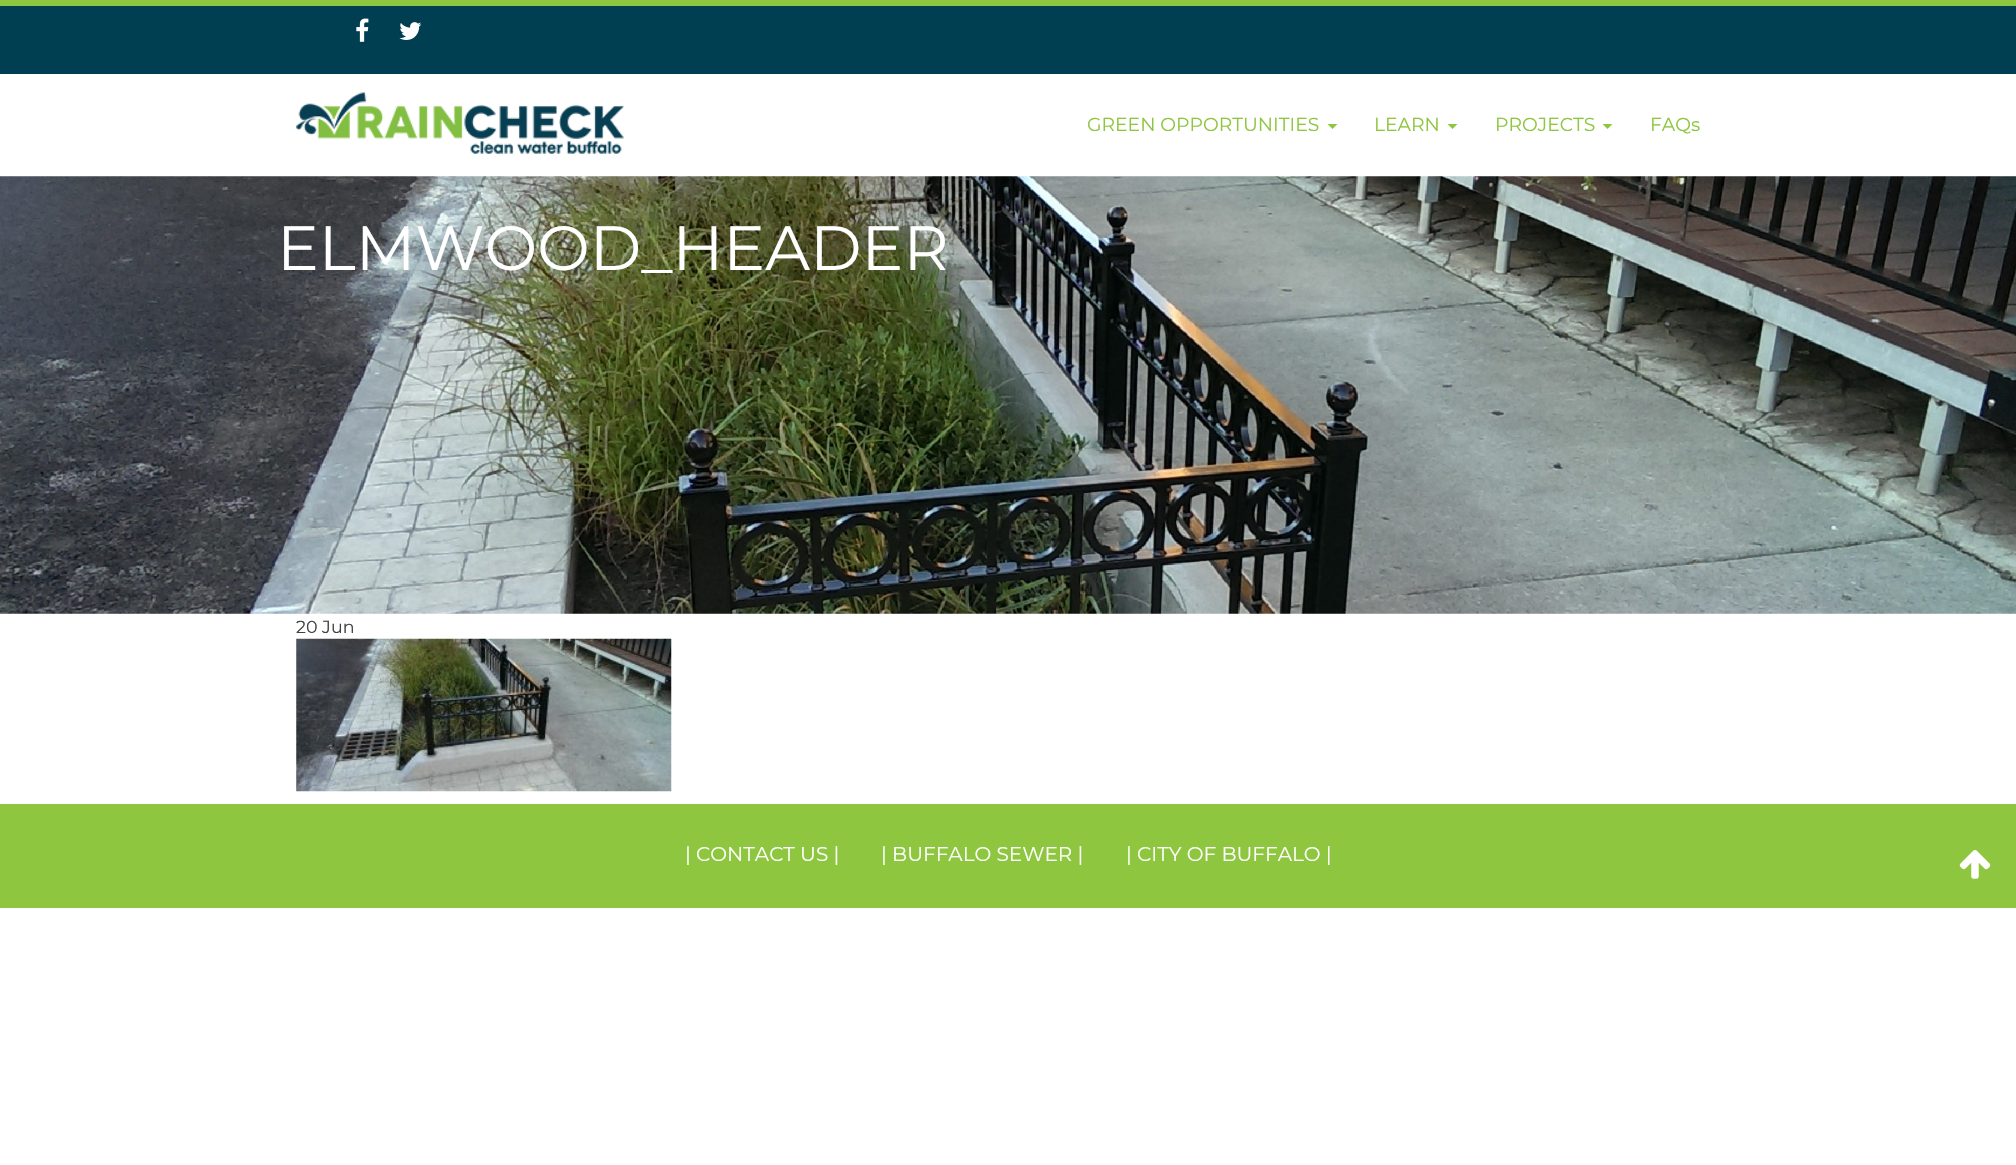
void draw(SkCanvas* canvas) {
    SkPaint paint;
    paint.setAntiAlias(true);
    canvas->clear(0xFFFFFFFF);
    paint.setColor(0xFF003E52);
    canvas->drawRect(SkRect::MakeXYWH(0, 6, 2016, 68), paint);
    paint.setColor(0xFF8EC63F);
    canvas->drawRect(SkRect::MakeXYWH(0, 0, 2016, 6), paint);
    canvas->drawImageRect(SkImages::DeferredFromEncodedData(SkData::MakeFromFileName("img1.png")), SkRect::MakeXYWH(356, 18, 13, 24), SkSamplingOptions());
    canvas->drawImageRect(SkImages::DeferredFromEncodedData(SkData::MakeFromFileName("img2.png")), SkRect::MakeXYWH(399, 22, 23, 18), SkSamplingOptions());
    canvas->drawImageRect(SkImages::DeferredFromEncodedData(SkData::MakeFromFileName("img3.png")), SkRect::MakeXYWH(296, 92, 328, 62), SkSamplingOptions());
    SkFont font1(fontMgr->matchFamilyStyle("Montserrat", SkFontStyle::Normal()), 18.75f);
    font1.setSubpixel(true);
    canvas->drawString("GREEN OPPORTUNITIES", 1087, 131, font1, paint);
    canvas->drawPath(SkPathBuilder().moveTo(1327.5f, 124).lineTo(1337.5f, 124).lineTo(1332.5f, 129).close().detach(), paint);
    canvas->drawString("LEARN", 1374, 131, font1, paint);
    canvas->drawPath(SkPathBuilder().moveTo(1447.5f, 124).lineTo(1457.5f, 124).lineTo(1452.5f, 129).close().detach(), paint);
    canvas->drawString("PROJECTS", 1495, 131, font1, paint);
    canvas->drawPath(SkPathBuilder().moveTo(1602.5f, 124).lineTo(1612.5f, 124).lineTo(1607.5f, 129).close().detach(), paint);
    canvas->drawString("FAQs", 1650, 131, font1, paint);
    canvas->drawImageRect(SkImages::DeferredFromEncodedData(SkData::MakeFromFileName("img4.png")), SkRect::MakeXYWH(0, 176, 2016, 438), SkSamplingOptions());
    SkFont font2(fontMgr->matchFamilyStyle("Montserrat", SkFontStyle::Normal()), 62.5f);
    font2.setSubpixel(true);
    paint.setColor(0xFFFFFFFF);
    canvas->drawString("ELMWOOD_HEADER", 277, 270, font2, paint);
    SkFont font3(fontMgr->matchFamilyStyle("Montserrat", SkFontStyle::Normal()), 17.5f);
    font3.setSubpixel(true);
    paint.setColor(0xFF404040);
    canvas->drawString("20 Jun", 296, 633, font3, paint);
    canvas->drawImageRect(SkImages::DeferredFromEncodedData(SkData::MakeFromFileName("img5.png")), SkRect::MakeXYWH(296, 638, 376, 154), SkSamplingOptions());
    paint.setColor(0xFF8EC63F);
    canvas->drawRect(SkRect::MakeXYWH(0, 804, 2016, 104), paint);
    SkFont font4(fontMgr->matchFamilyStyle("Montserrat", SkFontStyle::Normal()), 20);
    font4.setSubpixel(true);
    paint.setColor(0xFFFFFFFF);
    canvas->drawString("| CONTACT US |", 685, 861, font4, paint);
    canvas->drawString("| BUFFALO SEWER |", 881, 861, font4, paint);
    canvas->drawString("| CITY OF BUFFALO |", 1126, 861, font4, paint);
    canvas->drawImageRect(SkImages::DeferredFromEncodedData(SkData::MakeFromFileName("img6.png")), SkRect::MakeXYWH(1959, 850, 32, 29), SkSamplingOptions());
}
